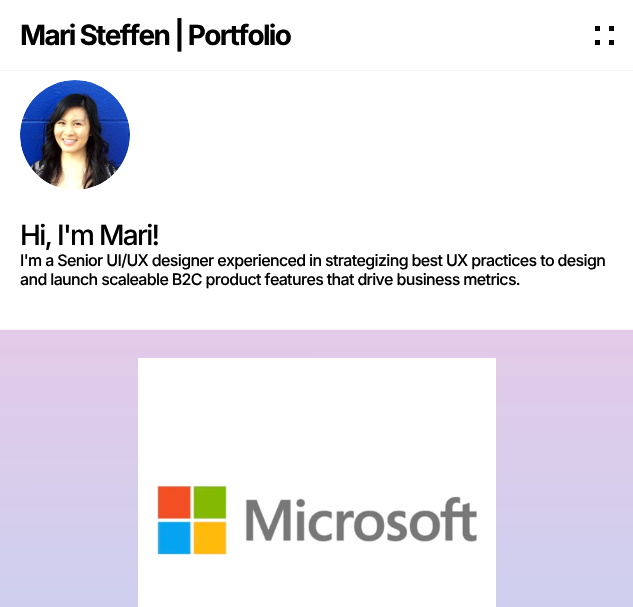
void draw(SkCanvas* canvas) {
    SkPaint paint;
    paint.setAntiAlias(true);
    auto spacedText = [&](const char* s, float x, float y, const SkFont& font, const SkPaint& ink, float letter, float word) {
        std::vector<SkGlyphID> glyphs(font.countText(s, strlen(s), SkTextEncoding::kUTF8));
        std::vector<float> xs(glyphs.size());
        font.textToGlyphs(s, strlen(s), SkTextEncoding::kUTF8, glyphs);
        font.getXPos(glyphs, xs, x);
        float extra = 0;
        for (size_t i = 0; i < glyphs.size(); i++) {
            xs[i] += extra;
            extra += letter + word * (glyphs[i] == font.unicharToGlyph(' '));
        }
        canvas->drawTextBlob(SkTextBlob::MakeFromPosHGlyphs(glyphs, xs, y, font), 0, 0, ink);
    };
    canvas->clear(0xFFFFFFFF);
    SkFont font1(fontMgr->matchFamilyStyle("Inter", SkFontStyle::Bold()), 28);
    font1.setSubpixel(true);
    paint.setColor(0xFF000000);
    spacedText("Mari Steffen | Portfolio", 20, 45, font1, paint, -1.7f, 0);
    canvas->drawRect(SkRect::MakeXYWH(595, 26, 5, 5), paint);
    canvas->drawRect(SkRect::MakeXYWH(609, 26, 5, 5), paint);
    canvas->drawRect(SkRect::MakeXYWH(595, 40, 5, 5), paint);
    canvas->drawRect(SkRect::MakeXYWH(609, 40, 5, 5), paint);
    paint.setColor(0xFFF5F5F5);
    canvas->drawRect(SkRect::MakeXYWH(0, 70, 633, 1), paint);
    canvas->drawImageRect(SkImages::DeferredFromEncodedData(SkData::MakeFromFileName("img1.png")), SkRect::MakeXYWH(20, 80, 110, 110), SkSamplingOptions());
    SkFont font2(fontMgr->matchFamilyStyle("Inter", SkFontStyle(500, SkFontStyle::kNormal_Width, SkFontStyle::kUpright_Slant)), 28);
    font2.setSubpixel(true);
    paint.setColor(0xFF000000);
    spacedText("Hi, I'm Mari!", 20, 245, font2, paint, -1.7f, 0);
    SkFont font3(fontMgr->matchFamilyStyle("Inter", SkFontStyle(500, SkFontStyle::kNormal_Width, SkFontStyle::kUpright_Slant)), 16);
    font3.setSubpixel(true);
    spacedText("I'm a Senior UI/UX designer experienced in strategizing best UX practices to design", 20, 266, font3, paint, -0.65f, 0);
    spacedText("and launch scaleable B2C product features that drive business metrics.", 20, 285, font3, paint, -0.65f, 0);
    paint.setColor(0xFFF5F5F5);
    canvas->drawRect(SkRect::MakeXYWH(0, 329, 633, 1), paint);
    {
        const SkColor colors[] = {0xFFE3CAE8, 0xFF96DEFF};
        const float stops[] = {0, 1};
        const SkPoint ends[] = {{316, 330}, {317, 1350}};
        paint.setShader(SkGradientShader::MakeLinear(ends, colors, stops, 2, SkTileMode::kClamp));
        paint.setAlpha(255);
    }
    canvas->drawRect(SkRect::MakeXYWH(0, 330, 633, 277), paint);
    canvas->drawImageRect(SkImages::DeferredFromEncodedData(SkData::MakeFromFileName("img2.png")), SkRect::MakeXYWH(138, 358, 358, 249), SkSamplingOptions());
}
